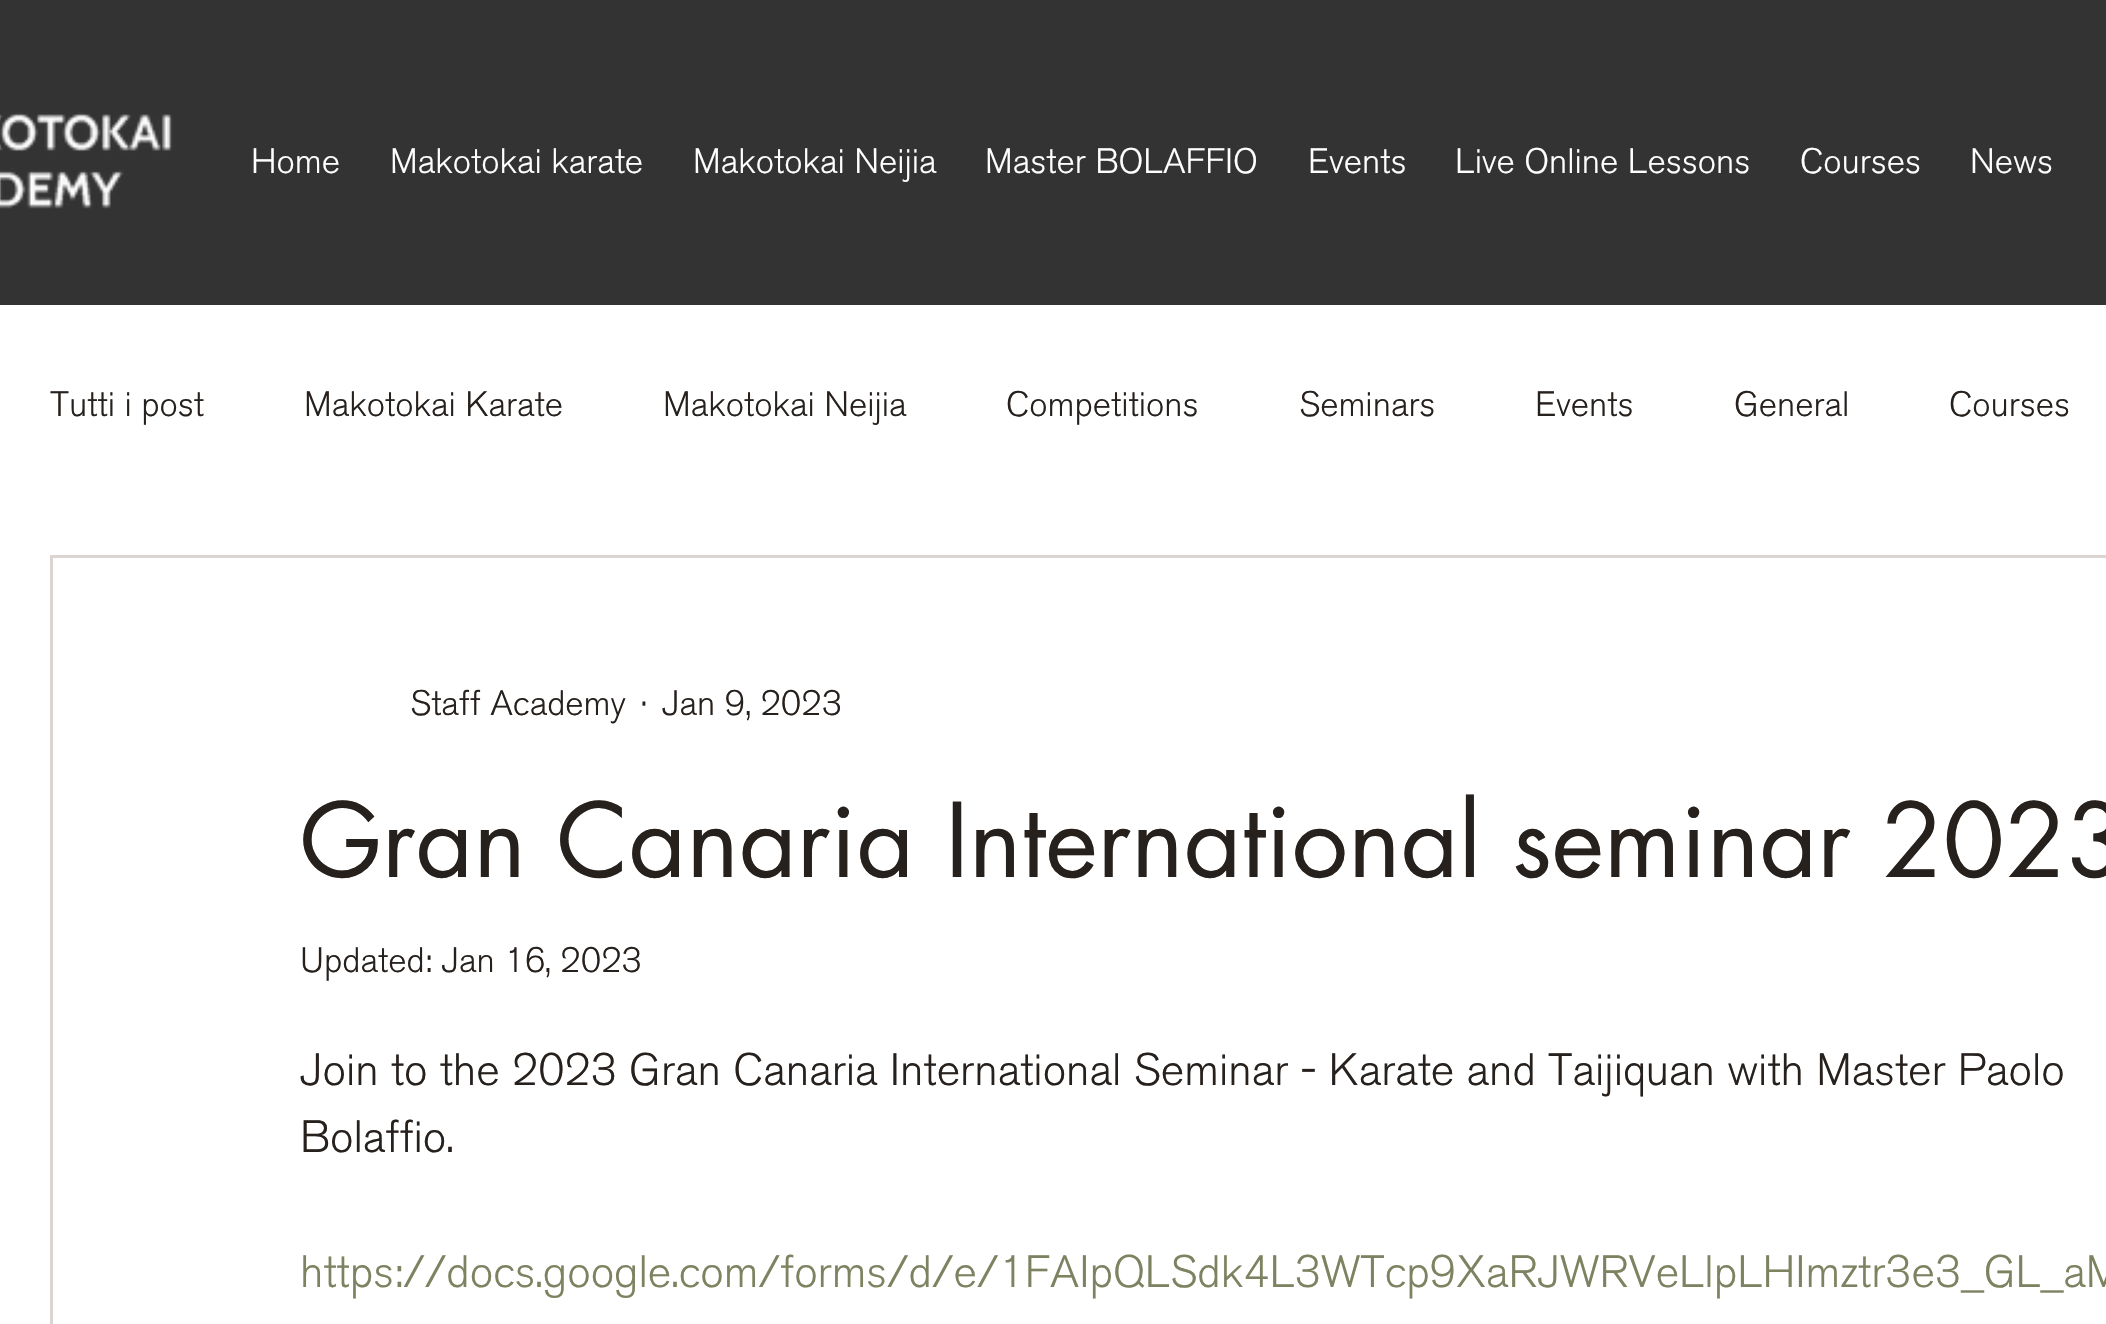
void draw(SkCanvas* canvas) {
    SkPaint paint;
    paint.setAntiAlias(true);
    canvas->clear(0xFFFFFFFF);
    paint.setColor(0xFF333333);
    canvas->drawRect(SkRect::MakeXYWH(0, 0, 2106, 305), paint);
    canvas->drawImageRect(SkImages::DeferredFromEncodedData(SkData::MakeFromFileName("img1.png")), SkRect::MakeXYWH(0, 112, 173, 97), SkSamplingOptions());
    SkFont font1(fontMgr->matchFamilyStyle("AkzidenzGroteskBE", SkFontStyle(300, SkFontStyle::kNormal_Width, SkFontStyle::kUpright_Slant)), 35);
    font1.setSubpixel(true);
    paint.setColor(0xFFFFFFFF);
    canvas->drawString("Home", 251, 173, font1, paint);
    canvas->drawString("Makotokai karate", 390, 173, font1, paint);
    canvas->drawString("Makotokai Neijia", 693, 173, font1, paint);
    canvas->drawString("Master BOLAFFIO", 985, 173, font1, paint);
    canvas->drawString("Events", 1308, 173, font1, paint);
    canvas->drawString("Live Online Lessons", 1455, 173, font1, paint);
    canvas->drawString("Courses", 1800, 173, font1, paint);
    canvas->drawString("News", 1970, 173, font1, paint);
    paint.setColor(0xFF27211E);
    canvas->drawString("Tutti i post", 50, 416, font1, paint);
    canvas->drawString("Makotokai Karate", 304, 416, font1, paint);
    canvas->drawString("Makotokai Neijia", 663, 416, font1, paint);
    canvas->drawString("Competitions", 1006, 416, font1, paint);
    canvas->drawString("Seminars", 1299, 416, font1, paint);
    canvas->drawString("Events", 1535, 416, font1, paint);
    canvas->drawString("General", 1734, 416, font1, paint);
    canvas->drawString("Courses", 1949, 416, font1, paint);
    paint.setStyle(SkPaint::kStroke_Style);
    paint.setStrokeWidth(3);
    paint.setColor(0xFFDBD4D1);
    canvas->drawRect(SkRect::MakeXYWH(51.5f, 556.5f, 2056, 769), paint);
    paint.setStyle(SkPaint::kFill_Style);
    paint.setColor(0xFF27211E);
    canvas->drawString("Staff Academy", 410, 715, font1, paint);
    canvas->drawString("·", 641, 715, font1, paint);
    canvas->drawString("Jan 9, 2023", 662, 715, font1, paint);
    SkFont font2(fontMgr->matchFamilyStyle("futura", SkFontStyle::Normal()), 100);
    font2.setSubpixel(true);
    canvas->drawString("Gran Canaria International seminar 2023", 300, 877, font2, paint);
    canvas->drawString("Updated: Jan 16, 2023", 300, 972, font1, paint);
    SkFont font3(fontMgr->matchFamilyStyle("AkzidenzGroteskBE", SkFontStyle(300, SkFontStyle::kNormal_Width, SkFontStyle::kUpright_Slant)), 45);
    font3.setSubpixel(true);
    canvas->drawString("Join to the 2023 Gran Canaria International Seminar - Karate and Taijiquan with Master Paolo", 300, 1085, font3, paint);
    canvas->drawString("Bolaffio.", 300, 1152, font3, paint);
    paint.setColor(0xFF7D8260);
    canvas->drawString("https://docs.google.com/forms/d/e/1FAIpQLSdk4L3WTcp9XaRJWRVeLlpLHImztr3e3_GL_aM", 300, 1287, font3, paint);
}
